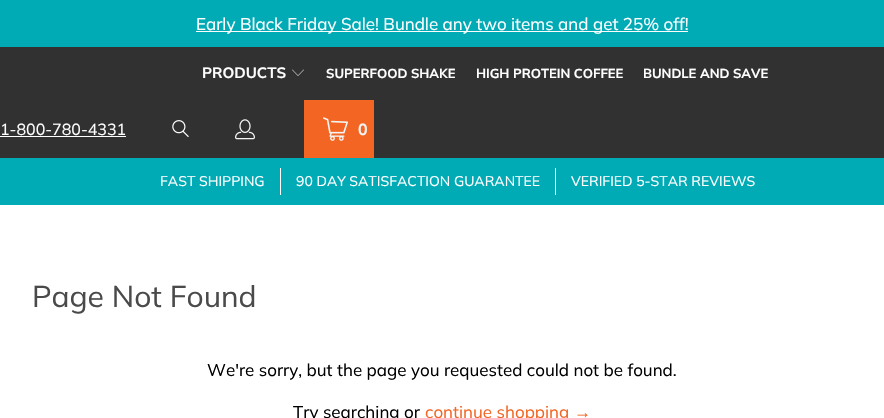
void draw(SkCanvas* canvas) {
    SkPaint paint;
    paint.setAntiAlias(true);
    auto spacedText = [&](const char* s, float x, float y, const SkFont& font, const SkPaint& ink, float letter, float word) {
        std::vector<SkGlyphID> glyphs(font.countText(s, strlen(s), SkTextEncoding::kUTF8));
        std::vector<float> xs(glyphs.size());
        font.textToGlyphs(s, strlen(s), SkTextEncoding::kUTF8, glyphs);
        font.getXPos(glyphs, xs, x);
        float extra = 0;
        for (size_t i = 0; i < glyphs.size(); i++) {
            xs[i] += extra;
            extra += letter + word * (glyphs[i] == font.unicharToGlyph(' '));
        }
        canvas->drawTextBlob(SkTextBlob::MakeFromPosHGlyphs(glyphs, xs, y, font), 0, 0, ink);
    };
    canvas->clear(0xFFFFFFFF);
    paint.setColor(0xFF01ABB6);
    canvas->drawRect(SkRect::MakeXYWH(0, 0, 884, 47), paint);
    paint.setColor(0xFFFFFFFF);
    canvas->drawRect(SkRect::MakeXYWH(196, 31, 492, 1), paint);
    SkFont font1(fontMgr->matchFamilyStyle("Muli", SkFontStyle::Normal()), 17);
    font1.setSubpixel(true);
    canvas->drawString("Early Black Friday Sale! Bundle any two items and get 25% off!", 196, 30, font1, paint);
    paint.setColor(0xFF313131);
    canvas->drawRect(SkRect::MakeXYWH(0, 47, 884, 111), paint);
    SkFont font2(fontMgr->matchFamilyStyle("Muli", SkFontStyle::Bold()), 15);
    font2.setSubpixel(true);
    paint.setColor(0xFFFFFFFF);
    canvas->drawString("PRODUCTS", 202, 78, font2, paint);
    canvas->drawImageRect(SkImages::DeferredFromEncodedData(SkData::MakeFromFileName("img1.png")), SkRect::MakeXYWH(292, 69, 12, 7), SkSamplingOptions());
    SkFont font3(fontMgr->matchFamilyStyle("Muli", SkFontStyle::Bold()), 13);
    font3.setSubpixel(true);
    canvas->drawString("SUPERFOOD SHAKE", 326, 78, font3, paint);
    canvas->drawString("HIGH PROTEIN COFFEE", 476, 78, font3, paint);
    canvas->drawString("BUNDLE AND SAVE", 643, 78, font3, paint);
    SkFont font4(fontMgr->matchFamilyStyle("Muli", SkFontStyle::Normal()), 16);
    font4.setSubpixel(true);
    canvas->drawString("1-800-780-4331", 0, 135, font4, paint);
    canvas->drawRect(SkRect::MakeXYWH(0, 136, 126, 1), paint);
    canvas->drawImageRect(SkImages::DeferredFromEncodedData(SkData::MakeFromFileName("img2.png")), SkRect::MakeXYWH(172, 120, 17, 17), SkSamplingOptions());
    canvas->drawImageRect(SkImages::DeferredFromEncodedData(SkData::MakeFromFileName("img3.png")), SkRect::MakeXYWH(235, 119, 20, 21), SkSamplingOptions());
    paint.setColor(0xFFF26522);
    canvas->drawRect(SkRect::MakeXYWH(304, 100, 70, 58), paint);
    canvas->drawImageRect(SkImages::DeferredFromEncodedData(SkData::MakeFromFileName("img4.png")), SkRect::MakeXYWH(323, 117, 25, 24), SkSamplingOptions());
    SkFont font5(fontMgr->matchFamilyStyle("Muli", SkFontStyle::Bold()), 16);
    font5.setSubpixel(true);
    paint.setColor(0xFFF4F4F4);
    spacedText("0", 358, 135, font5, paint, 1, 0);
    paint.setColor(0xFF01ABB6);
    canvas->drawRect(SkRect::MakeXYWH(0, 158, 884, 47), paint);
    paint.setColor(0xFFFFFFFF);
    canvas->drawRect(SkRect::MakeXYWH(280, 168, 1, 27), paint);
    SkFont font6(fontMgr->matchFamilyStyle("Muli", SkFontStyle::Normal()), 14);
    font6.setSubpixel(true);
    canvas->drawString("FAST SHIPPING", 160, 186, font6, paint);
    canvas->drawRect(SkRect::MakeXYWH(555, 168, 1, 27), paint);
    canvas->drawString("90 DAY SATISFACTION GUARANTEE", 296, 186, font6, paint);
    canvas->drawString("VERIFIED 5-STAR REVIEWS", 571, 186, font6, paint);
    SkFont font7(fontMgr->matchFamilyStyle("Muli", SkFontStyle::Normal()), 30);
    font7.setSubpixel(true);
    paint.setColor(0xFF4A4A4A);
    canvas->drawString("Page Not Found", 32, 307, font7, paint);
    paint.setColor(0xFF000000);
    canvas->drawString("We're sorry, but the page you requested could not be found.", 207, 376, font1, paint);
    canvas->drawString("Try searching or", 293, 418, font1, paint);
    paint.setColor(0xFFF26522);
    canvas->drawString("continue shopping", 425, 418, font1, paint);
    SkFont font8(fontMgr->matchFamilyStyle("Liberation Sans", SkFontStyle::Normal()), 17);
    font8.setSubpixel(true);
    canvas->drawString("→", 574, 418, font8, paint);
}
